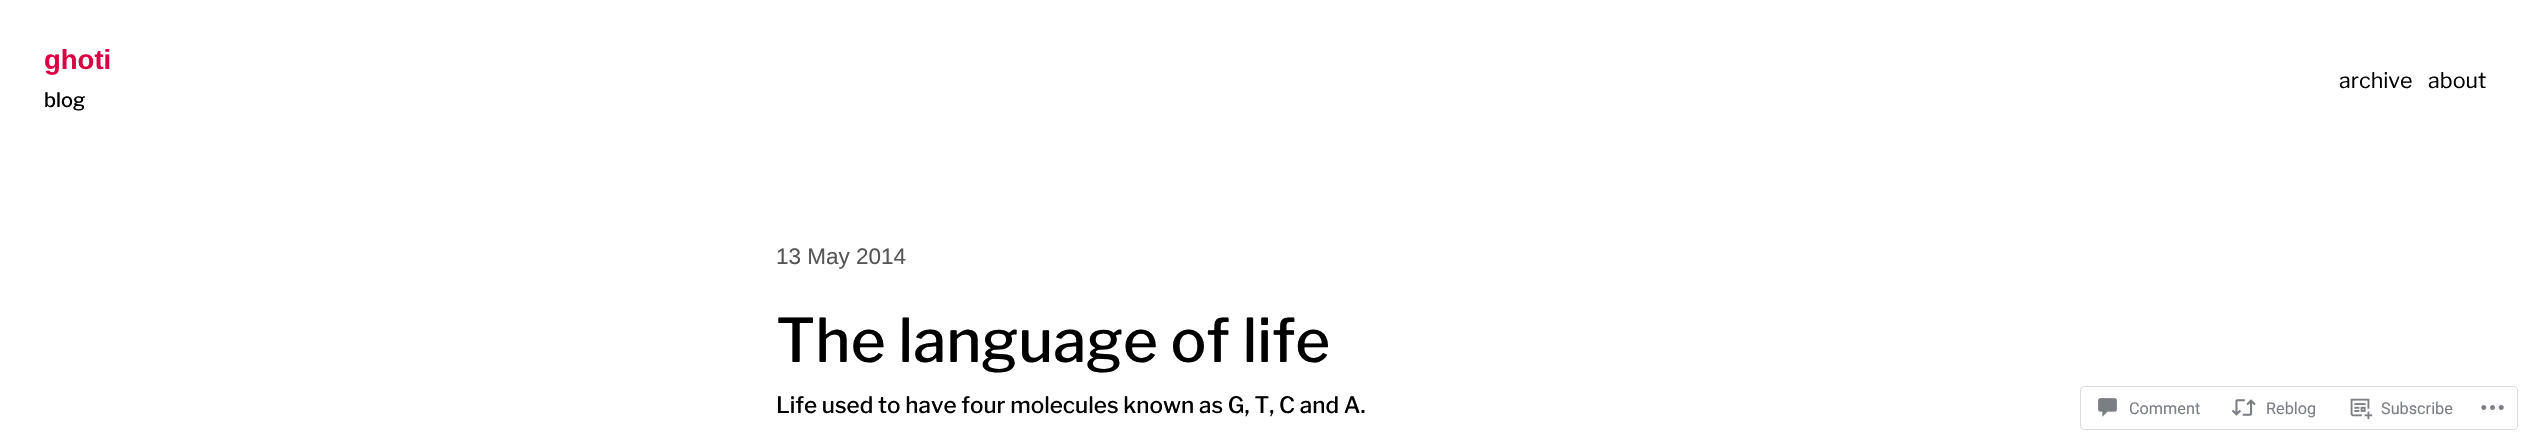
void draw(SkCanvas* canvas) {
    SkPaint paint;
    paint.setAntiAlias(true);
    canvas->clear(0xFFFFFFFF);
    SkFont font1(fontMgr->matchFamilyStyle("Liberation Sans", SkFontStyle::Bold()), 27.5f);
    font1.setSubpixel(true);
    paint.setColor(0xFFDB0042);
    canvas->drawString("ghoti", 44, 69, font1, paint);
    SkFont font2(fontMgr->matchFamilyStyle("Libre Franklin", SkFontStyle(500, SkFontStyle::kNormal_Width, SkFontStyle::kUpright_Slant)), 20);
    font2.setSubpixel(true);
    paint.setColor(0xFF000000);
    canvas->drawString("blog", 44, 107, font2, paint);
    SkFont font3(fontMgr->matchFamilyStyle("Libre Franklin", SkFontStyle::Normal()), 21.5f);
    font3.setSubpixel(true);
    canvas->drawString("archive", 2339, 88, font3, paint);
    canvas->drawString("about", 2428, 88, font3, paint);
    SkFont font4(fontMgr->matchFamilyStyle("Liberation Sans", SkFontStyle::Normal()), 22.5f);
    font4.setSubpixel(true);
    paint.setColor(0xFF555555);
    canvas->drawString("13 May 2014", 776, 264, font4, paint);
    SkFont font5(fontMgr->matchFamilyStyle("Libre Franklin", SkFontStyle(500, SkFontStyle::kNormal_Width, SkFontStyle::kUpright_Slant)), 60);
    font5.setSubpixel(true);
    paint.setColor(0xFF000000);
    canvas->drawString("The language of life", 776, 362, font5, paint);
    SkFont font6(fontMgr->matchFamilyStyle("Libre Franklin", SkFontStyle(500, SkFontStyle::kNormal_Width, SkFontStyle::kUpright_Slant)), 22.5f);
    font6.setSubpixel(true);
    canvas->drawString("Life used to have four molecules known as G, T, C and A.", 776, 413, font6, paint);
    paint.setStyle(SkPaint::kStroke_Style);
    paint.setStrokeWidth(1);
    paint.setColor(0xFFDDDDDF);
    canvas->drawRoundRect(SkRect::MakeXYWH(2080.5f, 386.5f, 437, 43), 3.5f, 3.5f, paint);
    canvas->drawImageRect(SkImages::DeferredFromEncodedData(SkData::MakeFromFileName("img1.png")), SkRect::MakeXYWH(2098, 398, 19, 19), SkSamplingOptions());
    SkFont font7(fontMgr->matchFamilyStyle("Roboto", SkFontStyle::Normal()), 16.25f);
    font7.setSubpixel(true);
    paint.setStyle(SkPaint::kFill_Style);
    paint.setColor(0xFF7B7F85);
    canvas->drawString("Comment", 2129, 414, font7, paint);
    canvas->drawImageRect(SkImages::DeferredFromEncodedData(SkData::MakeFromFileName("img2.png")), SkRect::MakeXYWH(2231, 399, 25, 17), SkSamplingOptions());
    canvas->drawString("Reblog", 2266, 414, font7, paint);
    canvas->drawImageRect(SkImages::DeferredFromEncodedData(SkData::MakeFromFileName("img3.png")), SkRect::MakeXYWH(2350, 398, 23, 22), SkSamplingOptions());
    canvas->drawString("Subscribe", 2381, 414, font7, paint);
    canvas->drawImageRect(SkImages::DeferredFromEncodedData(SkData::MakeFromFileName("img4.png")), SkRect::MakeXYWH(2481, 405, 23, 5), SkSamplingOptions());
}
